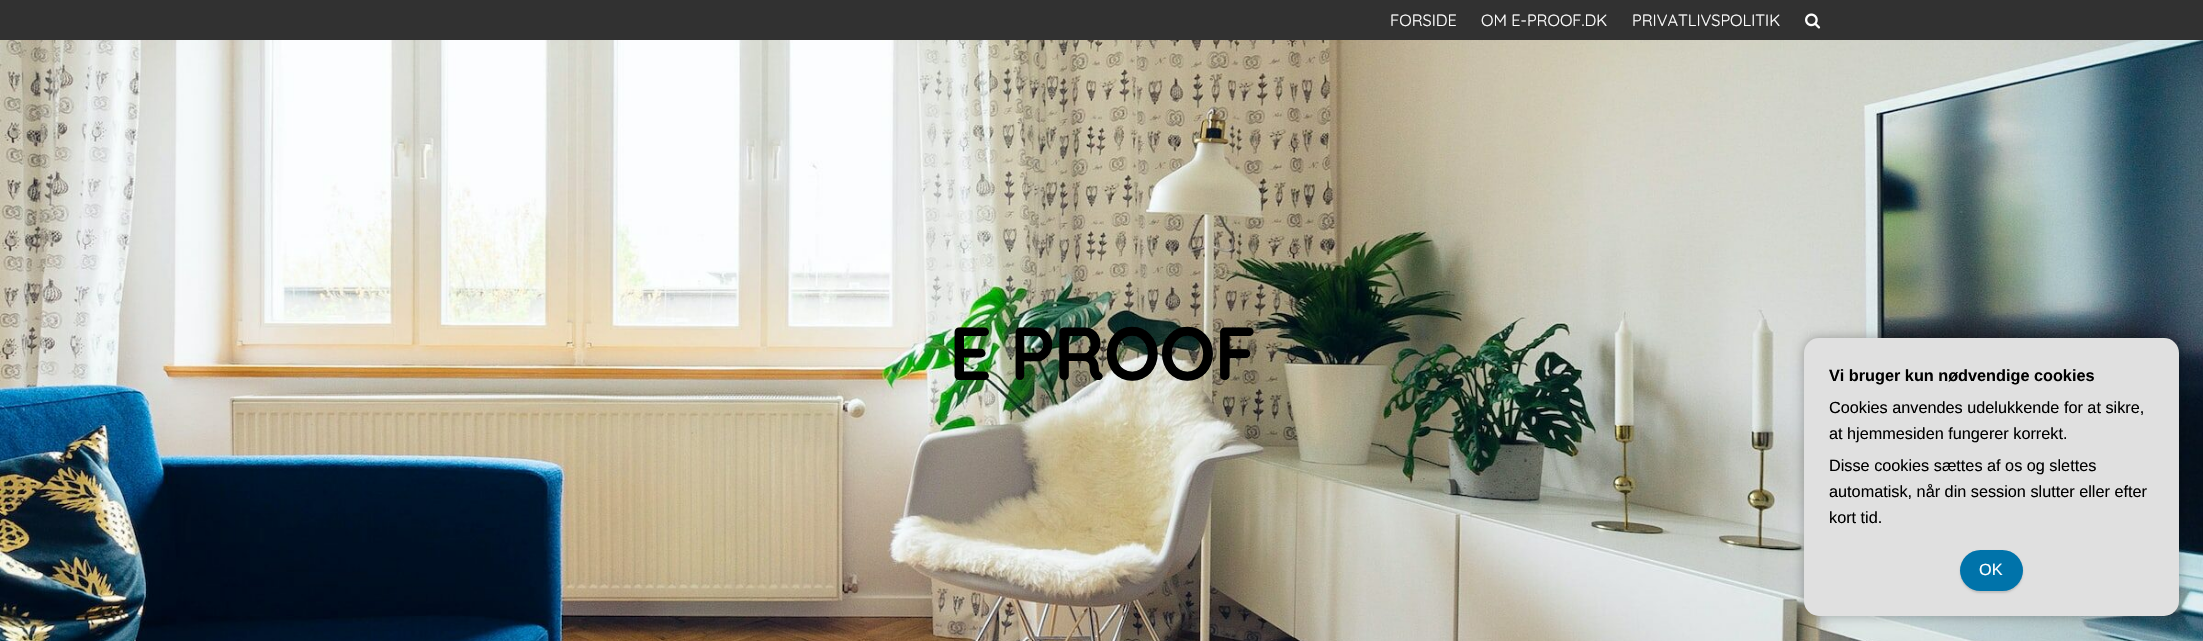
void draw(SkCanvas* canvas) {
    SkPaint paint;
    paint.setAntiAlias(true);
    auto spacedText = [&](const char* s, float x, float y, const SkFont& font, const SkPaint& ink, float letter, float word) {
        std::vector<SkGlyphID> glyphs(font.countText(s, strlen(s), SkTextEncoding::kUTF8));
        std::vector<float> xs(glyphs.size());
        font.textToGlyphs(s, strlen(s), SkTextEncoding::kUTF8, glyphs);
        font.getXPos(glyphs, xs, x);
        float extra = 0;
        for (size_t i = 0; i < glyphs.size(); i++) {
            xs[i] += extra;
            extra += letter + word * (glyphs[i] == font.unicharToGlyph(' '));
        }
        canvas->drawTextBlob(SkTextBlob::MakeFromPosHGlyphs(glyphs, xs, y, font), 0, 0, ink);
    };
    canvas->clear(0xFFFFFFFF);
    paint.setColor(0xFF313131);
    canvas->drawRect(SkRect::MakeXYWH(0, 0, 2203, 40), paint);
    SkFont font1(fontMgr->matchFamilyStyle("Quicksand", SkFontStyle::Normal()), 16.25f);
    font1.setSubpixel(true);
    paint.setColor(0xFFFFFFFF);
    canvas->drawString("FORSIDE", 1390, 26, font1, paint);
    canvas->drawString("OM E-PROOF.DK", 1481, 26, font1, paint);
    canvas->drawString("PRIVATLIVSPOLITIK", 1632, 26, font1, paint);
    canvas->drawImageRect(SkImages::DeferredFromEncodedData(SkData::MakeFromFileName("img1.png")), SkRect::MakeXYWH(1805, 13, 16, 16), SkSamplingOptions());
    canvas->drawImageRect(SkImages::DeferredFromEncodedData(SkData::MakeFromFileName("img2.png")), SkRect::MakeXYWH(0, 40, 2203, 601), SkSamplingOptions());
    SkFont font2(fontMgr->matchFamilyStyle("Quicksand", SkFontStyle::Bold()), 75);
    font2.setSubpixel(true);
    paint.setColor(0xFF000000);
    spacedText("E PROOF", 949, 380, font2, paint, -1.5f, 0);
    paint.setColor(0x4D000000);
    paint.setMaskFilter(SkMaskFilter::MakeBlur(kNormal_SkBlurStyle, 6));
    canvas->drawRoundRect(SkRect::MakeXYWH(1804, 338, 375, 278), 15, 15, paint);
    paint.setMaskFilter(nullptr);
    paint.setColor(0xFFE0E0E0);
    canvas->drawRoundRect(SkRect::MakeXYWH(1804, 338, 375, 278), 15, 15, paint);
    SkFont font3(fontMgr->matchFamilyStyle("Liberation Sans", SkFontStyle::Bold()), 16.25f);
    font3.setSubpixel(true);
    paint.setColor(0xFF000000);
    canvas->drawString("Vi bruger kun nødvendige cookies", 1829, 381, font3, paint);
    SkFont font4(fontMgr->matchFamilyStyle("Liberation Sans", SkFontStyle::Normal()), 16.25f);
    font4.setSubpixel(true);
    canvas->drawString("Cookies anvendes udelukkende for at sikre,", 1829, 413, font4, paint);
    canvas->drawString("at hjemmesiden fungerer korrekt.", 1829, 439, font4, paint);
    canvas->drawString("Disse cookies sættes af os og slettes", 1829, 471, font4, paint);
    canvas->drawString("automatisk, når din session slutter eller efter", 1829, 497, font4, paint);
    canvas->drawString("kort tid.", 1829, 523, font4, paint);
    paint.setColor(0x26000000);
    paint.setMaskFilter(SkMaskFilter::MakeBlur(kNormal_SkBlurStyle, 1));
    canvas->drawRoundRect(SkRect::MakeXYWH(1960, 551, 63, 42), 21, 21, paint);
    paint.setMaskFilter(nullptr);
    paint.setColor(0xFF0073AA);
    canvas->drawRoundRect(SkRect::MakeXYWH(1960, 550, 63, 41), 20.5f, 20.5f, paint);
    paint.setColor(0xFFFFFFFF);
    canvas->drawString("OK", 1979, 575, font4, paint);
}
